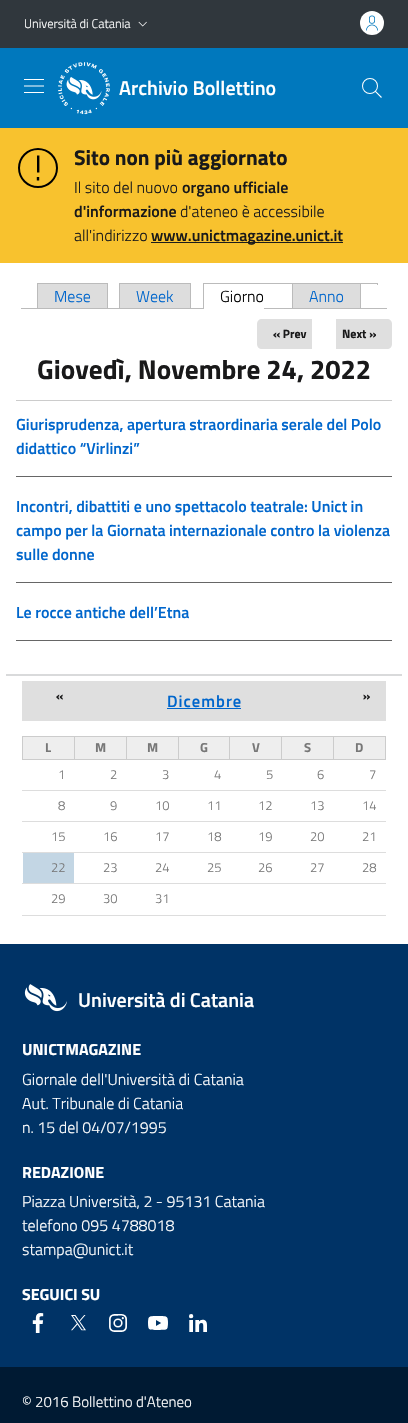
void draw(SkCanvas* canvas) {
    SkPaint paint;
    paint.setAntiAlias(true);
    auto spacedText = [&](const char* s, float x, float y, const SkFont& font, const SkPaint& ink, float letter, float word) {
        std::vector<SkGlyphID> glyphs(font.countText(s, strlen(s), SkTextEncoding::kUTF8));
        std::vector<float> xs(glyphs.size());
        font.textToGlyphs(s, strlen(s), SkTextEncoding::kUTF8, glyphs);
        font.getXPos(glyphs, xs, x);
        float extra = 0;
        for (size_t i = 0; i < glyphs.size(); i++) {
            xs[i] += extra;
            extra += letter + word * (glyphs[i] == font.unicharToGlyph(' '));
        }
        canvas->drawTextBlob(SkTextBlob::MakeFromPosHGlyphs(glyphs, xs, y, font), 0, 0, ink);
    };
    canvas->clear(0xFFFFFFFF);
    paint.setColor(0xFF30373D);
    canvas->drawRect(SkRect::MakeXYWH(0, 0, 408, 48), paint);
    SkFont font1(fontMgr->matchFamilyStyle("Titillium Web", SkFontStyle(300, SkFontStyle::kNormal_Width, SkFontStyle::kUpright_Slant)), 12.5f);
    font1.setSubpixel(true);
    paint.setColor(0xFFFFFFFF);
    canvas->drawString("Università di Catania", 24, 28, font1, paint);
    canvas->drawImageRect(SkImages::DeferredFromEncodedData(SkData::MakeFromFileName("img1.png")), SkRect::MakeXYWH(138, 21, 9, 6), SkSamplingOptions());
    canvas->drawCircle(372, 23, 12, paint);
    canvas->drawImageRect(SkImages::DeferredFromEncodedData(SkData::MakeFromFileName("img2.png")), SkRect::MakeXYWH(366, 15, 12, 16), SkSamplingOptions());
    paint.setColor(0xFF0078BD);
    canvas->drawRect(SkRect::MakeXYWH(0, 48, 408, 80), paint);
    canvas->drawImageRect(SkImages::DeferredFromEncodedData(SkData::MakeFromFileName("img3.png")), SkRect::MakeXYWH(24, 79, 20, 14), SkSamplingOptions());
    canvas->drawImageRect(SkImages::DeferredFromEncodedData(SkData::MakeFromFileName("img4.png")), SkRect::MakeXYWH(58, 62, 52, 53), SkSamplingOptions());
    SkFont font2(fontMgr->matchFamilyStyle("Titillium Web", SkFontStyle(600, SkFontStyle::kNormal_Width, SkFontStyle::kUpright_Slant)), 20);
    font2.setSubpixel(true);
    paint.setColor(0xFFFFFFFF);
    canvas->drawString("Archivio Bollettino", 119, 95, font2, paint);
    canvas->drawImageRect(SkImages::DeferredFromEncodedData(SkData::MakeFromFileName("img5.png")), SkRect::MakeXYWH(362, 78, 20, 20), SkSamplingOptions());
    paint.setColor(0xFFF8C22E);
    canvas->drawRect(SkRect::MakeXYWH(0, 128, 408, 135), paint);
    canvas->drawImageRect(SkImages::DeferredFromEncodedData(SkData::MakeFromFileName("img6.png")), SkRect::MakeXYWH(18, 148, 40, 40), SkSamplingOptions());
    SkFont font3(fontMgr->matchFamilyStyle("Titillium Web", SkFontStyle::Bold()), 21.25f);
    font3.setSubpixel(true);
    paint.setColor(0xFF19191A);
    canvas->drawString("Sito non più aggiornato", 74, 165, font3, paint);
    SkFont font4(fontMgr->matchFamilyStyle("Titillium Web", SkFontStyle(300, SkFontStyle::kNormal_Width, SkFontStyle::kUpright_Slant)), 16);
    font4.setSubpixel(true);
    canvas->drawString("Il sito del nuovo", 74, 193, font4, paint);
    SkFont font5(fontMgr->matchFamilyStyle("Titillium Web", SkFontStyle(600, SkFontStyle::kNormal_Width, SkFontStyle::kUpright_Slant)), 16);
    font5.setSubpixel(true);
    canvas->drawString("organo ufficiale", 182, 193, font5, paint);
    canvas->drawString("d'informazione", 74, 217, font5, paint);
    canvas->drawString("d'ateneo è accessibile", 180, 217, font4, paint);
    canvas->drawString("all'indirizzo", 74, 241, font4, paint);
    paint.setColor(0xFF1C1C1C);
    canvas->drawRect(SkRect::MakeXYWH(151, 242, 192, 1), paint);
    paint.setColor(0xFF19191A);
    canvas->drawString("www.unictmagazine.unict.it", 151, 241, font5, paint);
    paint.setColor(0xFFBBBBBB);
    canvas->drawRect(SkRect::MakeXYWH(21, 308, 366, 1), paint);
    paint.setColor(0xFFDDDDDD);
    canvas->drawRect(SkRect::MakeXYWH(38, 284, 69, 24), paint);
    paint.setColor(0xFF0066CC);
    canvas->drawString("Mese", 54, 302, font4, paint);
    paint.setColor(0xFFBBBBBB);
    canvas->drawRect(SkRect::MakeXYWH(37, 283, 71, 1), paint);
    canvas->drawRect(SkRect::MakeXYWH(107, 283, 1, 25), paint);
    canvas->drawRect(SkRect::MakeXYWH(37, 283, 1, 25), paint);
    paint.setColor(0xFFDDDDDD);
    canvas->drawRect(SkRect::MakeXYWH(120, 284, 70, 24), paint);
    paint.setColor(0xFF0066CC);
    canvas->drawString("Week", 136, 302, font4, paint);
    paint.setColor(0xFFBBBBBB);
    canvas->drawRect(SkRect::MakeXYWH(119, 283, 72, 1), paint);
    canvas->drawRect(SkRect::MakeXYWH(190, 283, 1, 25), paint);
    canvas->drawRect(SkRect::MakeXYWH(119, 283, 1, 25), paint);
    paint.setColor(0xFF000000);
    canvas->drawString("Giorno", 220, 302, font4, paint);
    paint.setColor(0xFFFFFFFF);
    canvas->drawRect(SkRect::MakeXYWH(204, 308, 60, 1), paint);
    paint.setColor(0xFFBBBBBB);
    canvas->drawRect(SkRect::MakeXYWH(203, 283, 175, 1), paint);
    canvas->drawRect(SkRect::MakeXYWH(203, 283, 1, 26), paint);
    canvas->drawRect(SkRect::MakeXYWH(377, 283, 1, 3), paint);
    paint.setColor(0xFFFFFFFF);
    canvas->drawRect(SkRect::MakeXYWH(377, 285, 1, 1), paint);
    paint.setColor(0xFFDDDDDD);
    canvas->drawRect(SkRect::MakeXYWH(293, 284, 67, 24), paint);
    paint.setColor(0xFF0066CC);
    canvas->drawString("Anno", 309, 302, font4, paint);
    paint.setColor(0xFFBBBBBB);
    canvas->drawRect(SkRect::MakeXYWH(360, 283, 1, 25), paint);
    canvas->drawRect(SkRect::MakeXYWH(292, 283, 1, 25), paint);
    paint.setColor(0xFFDFDFDF);
    canvas->drawPath(SkPathBuilder().moveTo(262, 319).lineTo(312, 319).lineTo(312, 349).lineTo(262, 349).cubicTo(259, 349, 257, 347, 257, 344).lineTo(257, 324).cubicTo(257, 321, 259, 319, 262, 319).close().detach(), paint);
    SkFont font6(fontMgr->matchFamilyStyle("Titillium Web", SkFontStyle::Bold()), 12);
    font6.setSubpixel(true);
    paint.setColor(0xFF19191A);
    canvas->drawString("« Prev", 273, 338, font6, paint);
    paint.setColor(0xFFDFDFDF);
    canvas->drawPath(SkPathBuilder().moveTo(336, 319).lineTo(387, 319).cubicTo(390, 319, 392, 321, 392, 324).lineTo(392, 344).cubicTo(392, 347, 390, 349, 387, 349).lineTo(336, 349).close().detach(), paint);
    paint.setColor(0xFF19191A);
    canvas->drawString("Next »", 342, 338, font6, paint);
    paint.setColor(0xFFCCCCCC);
    canvas->drawRect(SkRect::MakeXYWH(16, 400, 376, 1), paint);
    SkFont font7(fontMgr->matchFamilyStyle("Titillium Web", SkFontStyle::Bold()), 27.25f);
    font7.setSubpixel(true);
    paint.setColor(0xFF19191A);
    canvas->drawString("Giovedì, Novembre 24, 2022", 37, 379, font7, paint);
    paint.setColor(0xFF0066CC);
    canvas->drawString("Giurisprudenza, apertura straordinaria serale del Polo", 16, 430, font5, paint);
    canvas->drawString("didattico “Virlinzi”", 16, 454, font5, paint);
    paint.setColor(0xFF666666);
    canvas->drawRect(SkRect::MakeXYWH(16, 476, 376, 1), paint);
    paint.setColor(0xFF0066CC);
    canvas->drawString("Incontri, dibattiti e uno spettacolo teatrale: Unict in", 16, 512, font5, paint);
    canvas->drawString("campo per la Giornata internazionale contro la violenza", 16, 536, font5, paint);
    canvas->drawString("sulle donne", 16, 560, font5, paint);
    paint.setColor(0xFF666666);
    canvas->drawRect(SkRect::MakeXYWH(16, 582, 376, 1), paint);
    paint.setColor(0xFF0066CC);
    canvas->drawString("Le rocce antiche dell’Etna", 16, 618, font5, paint);
    paint.setColor(0xFF666666);
    canvas->drawRect(SkRect::MakeXYWH(16, 640, 376, 1), paint);
    paint.setColor(0xFFD9DADB);
    canvas->drawRect(SkRect::MakeXYWH(6, 674, 396, 2), paint);
    paint.setColor(0xFFDFDFDF);
    canvas->drawRect(SkRect::MakeXYWH(22, 681, 364, 40), paint);
    paint.setColor(0xFF19191A);
    canvas->drawString("«", 56, 700, font6, paint);
    canvas->drawString("»", 363, 700, font6, paint);
    SkFont font8(fontMgr->matchFamilyStyle("Titillium Web", SkFontStyle(600, SkFontStyle::kNormal_Width, SkFontStyle::kUpright_Slant)), 16.5f);
    font8.setSubpixel(true);
    paint.setColor(0xFF0066CC);
    spacedText("Dicembre", 167, 707, font8, paint, 1, 0);
    canvas->drawRect(SkRect::MakeXYWH(167, 708, 74, 1), paint);
    paint.setColor(0xFFEEEEEE);
    canvas->drawRect(SkRect::MakeXYWH(23, 737, 51, 22), paint);
    paint.setColor(0xFFCCCCCC);
    canvas->drawRect(SkRect::MakeXYWH(333, 736, 53, 1), paint);
    canvas->drawRect(SkRect::MakeXYWH(385, 736, 1, 24), paint);
    canvas->drawRect(SkRect::MakeXYWH(333, 759, 53, 1), paint);
    canvas->drawRect(SkRect::MakeXYWH(333, 736, 1, 24), paint);
    canvas->drawRect(SkRect::MakeXYWH(281, 736, 53, 1), paint);
    canvas->drawRect(SkRect::MakeXYWH(281, 759, 53, 1), paint);
    canvas->drawRect(SkRect::MakeXYWH(281, 736, 1, 24), paint);
    canvas->drawRect(SkRect::MakeXYWH(229, 736, 53, 1), paint);
    canvas->drawRect(SkRect::MakeXYWH(229, 759, 53, 1), paint);
    canvas->drawRect(SkRect::MakeXYWH(229, 736, 1, 24), paint);
    canvas->drawRect(SkRect::MakeXYWH(178, 736, 52, 1), paint);
    canvas->drawRect(SkRect::MakeXYWH(178, 759, 52, 1), paint);
    canvas->drawRect(SkRect::MakeXYWH(178, 736, 1, 24), paint);
    canvas->drawRect(SkRect::MakeXYWH(126, 736, 53, 1), paint);
    canvas->drawRect(SkRect::MakeXYWH(126, 759, 53, 1), paint);
    canvas->drawRect(SkRect::MakeXYWH(126, 736, 1, 24), paint);
    canvas->drawRect(SkRect::MakeXYWH(74, 736, 53, 1), paint);
    canvas->drawRect(SkRect::MakeXYWH(74, 759, 53, 1), paint);
    canvas->drawRect(SkRect::MakeXYWH(74, 736, 1, 24), paint);
    canvas->drawRect(SkRect::MakeXYWH(22, 736, 53, 1), paint);
    canvas->drawRect(SkRect::MakeXYWH(22, 759, 53, 1), paint);
    canvas->drawRect(SkRect::MakeXYWH(22, 736, 1, 24), paint);
    SkFont font9(fontMgr->matchFamilyStyle("Titillium Web", SkFontStyle::Bold()), 13);
    font9.setSubpixel(true);
    paint.setColor(0xFF777777);
    canvas->drawString("L", 45, 752, font9, paint);
    paint.setColor(0xFFEEEEEE);
    canvas->drawRect(SkRect::MakeXYWH(75, 737, 51, 22), paint);
    paint.setColor(0xFF777777);
    canvas->drawString("M", 95, 752, font9, paint);
    paint.setColor(0xFFEEEEEE);
    canvas->drawRect(SkRect::MakeXYWH(127, 737, 51, 22), paint);
    paint.setColor(0xFF777777);
    canvas->drawString("M", 147, 752, font9, paint);
    paint.setColor(0xFFEEEEEE);
    canvas->drawRect(SkRect::MakeXYWH(179, 737, 50, 22), paint);
    paint.setColor(0xFF777777);
    canvas->drawString("G", 200, 752, font9, paint);
    paint.setColor(0xFFEEEEEE);
    canvas->drawRect(SkRect::MakeXYWH(230, 737, 51, 22), paint);
    paint.setColor(0xFF777777);
    canvas->drawString("V", 252, 752, font9, paint);
    paint.setColor(0xFFEEEEEE);
    canvas->drawRect(SkRect::MakeXYWH(282, 737, 51, 22), paint);
    paint.setColor(0xFF777777);
    canvas->drawString("S", 304, 752, font9, paint);
    paint.setColor(0xFFEEEEEE);
    canvas->drawRect(SkRect::MakeXYWH(334, 737, 51, 22), paint);
    paint.setColor(0xFF777777);
    canvas->drawString("D", 355, 752, font9, paint);
    SkFont font10(fontMgr->matchFamilyStyle("Titillium Web", SkFontStyle(300, SkFontStyle::kNormal_Width, SkFontStyle::kUpright_Slant)), 13);
    font10.setSubpixel(true);
    canvas->drawString("1", 58, 779, font10, paint);
    canvas->drawString("2", 110, 779, font10, paint);
    canvas->drawString("3", 162, 779, font10, paint);
    canvas->drawString("4", 214, 779, font10, paint);
    canvas->drawString("5", 266, 779, font10, paint);
    canvas->drawString("6", 317, 779, font10, paint);
    paint.setColor(0xFFDDDDDD);
    canvas->drawRect(SkRect::MakeXYWH(22, 790, 364, 1), paint);
    paint.setColor(0xFF777777);
    canvas->drawString("7", 369, 779, font10, paint);
    canvas->drawString("8", 58, 810, font10, paint);
    canvas->drawString("9", 110, 810, font10, paint);
    canvas->drawString("10", 155, 810, font10, paint);
    canvas->drawString("11", 207, 810, font10, paint);
    canvas->drawString("12", 258, 810, font10, paint);
    canvas->drawString("13", 310, 810, font10, paint);
    paint.setColor(0xFFDDDDDD);
    canvas->drawRect(SkRect::MakeXYWH(22, 821, 364, 1), paint);
    paint.setColor(0xFF777777);
    canvas->drawString("14", 362, 810, font10, paint);
    canvas->drawString("15", 51, 841, font10, paint);
    canvas->drawString("16", 103, 841, font10, paint);
    canvas->drawString("17", 155, 841, font10, paint);
    canvas->drawString("18", 207, 841, font10, paint);
    canvas->drawString("19", 258, 841, font10, paint);
    canvas->drawString("20", 310, 841, font10, paint);
    paint.setColor(0xFFDDDDDD);
    canvas->drawRect(SkRect::MakeXYWH(22, 852, 364, 1), paint);
    paint.setColor(0xFF777777);
    canvas->drawString("21", 362, 841, font10, paint);
    paint.setColor(0xFFC3D6E4);
    canvas->drawRect(SkRect::MakeXYWH(23, 853, 51, 30), paint);
    paint.setColor(0xFF777777);
    canvas->drawString("22", 51, 872, font10, paint);
    canvas->drawString("23", 103, 872, font10, paint);
    canvas->drawString("24", 155, 872, font10, paint);
    canvas->drawString("25", 207, 872, font10, paint);
    canvas->drawString("26", 258, 872, font10, paint);
    canvas->drawString("27", 310, 872, font10, paint);
    paint.setColor(0xFFDDDDDD);
    canvas->drawRect(SkRect::MakeXYWH(22, 883, 364, 1), paint);
    paint.setColor(0xFF777777);
    canvas->drawString("28", 362, 872, font10, paint);
    canvas->drawString("29", 51, 903, font10, paint);
    canvas->drawString("30", 103, 903, font10, paint);
    canvas->drawString("31", 155, 903, font10, paint);
    paint.setColor(0xFFDDDDDD);
    canvas->drawRect(SkRect::MakeXYWH(22, 915, 364, 1), paint);
    paint.setColor(0xFF003366);
    canvas->drawRect(SkRect::MakeXYWH(0, 944, 408, 423), paint);
    canvas->drawImageRect(SkImages::DeferredFromEncodedData(SkData::MakeFromFileName("img7.png")), SkRect::MakeXYWH(24, 984, 43, 28), SkSamplingOptions());
    paint.setColor(0xFFFFFFFF);
    canvas->drawString("Università di Catania", 78, 1007, font2, paint);
    SkFont font11(fontMgr->matchFamilyStyle("Titillium Web", SkFontStyle::Bold()), 16);
    font11.setSubpixel(true);
    canvas->drawString("UNICTMAGAZINE", 22, 1055, font11, paint);
    canvas->drawString("Giornale dell'Università di Catania", 22, 1085, font4, paint);
    canvas->drawString("Aut. Tribunale di Catania", 22, 1109, font4, paint);
    canvas->drawString("n. 15 del 04/07/1995", 22, 1133, font4, paint);
    canvas->drawString("REDAZIONE", 22, 1178, font11, paint);
    canvas->drawString("Piazza Università, 2 - 95131 Catania", 22, 1207, font4, paint);
    canvas->drawString("telefono 095 4788018", 22, 1231, font4, paint);
    canvas->drawString("stampa@unict.it", 22, 1255, font4, paint);
    canvas->drawString("SEGUICI SU", 22, 1300, font11, paint);
    canvas->drawImageRect(SkImages::DeferredFromEncodedData(SkData::MakeFromFileName("img8.png")), SkRect::MakeXYWH(32, 1313, 12, 20), SkSamplingOptions());
    canvas->drawImageRect(SkImages::DeferredFromEncodedData(SkData::MakeFromFileName("img9.png")), SkRect::MakeXYWH(71, 1315, 15, 16), SkSamplingOptions());
    canvas->drawImageRect(SkImages::DeferredFromEncodedData(SkData::MakeFromFileName("img10.png")), SkRect::MakeXYWH(109, 1314, 19, 18), SkSamplingOptions());
    canvas->drawImageRect(SkImages::DeferredFromEncodedData(SkData::MakeFromFileName("img11.png")), SkRect::MakeXYWH(148, 1316, 20, 14), SkSamplingOptions());
    canvas->drawImageRect(SkImages::DeferredFromEncodedData(SkData::MakeFromFileName("img12.png")), SkRect::MakeXYWH(189, 1314, 18, 18), SkSamplingOptions());
    paint.setColor(0xFF001A33);
    canvas->drawRect(SkRect::MakeXYWH(0, 1367, 408, 56), paint);
    SkFont font12(fontMgr->matchFamilyStyle("Titillium Web", SkFontStyle(300, SkFontStyle::kNormal_Width, SkFontStyle::kUpright_Slant)), 15);
    font12.setSubpixel(true);
    paint.setColor(0xFFFFFFFF);
    canvas->drawString("© 2016 Bollettino d'Ateneo", 22, 1407, font12, paint);
}
